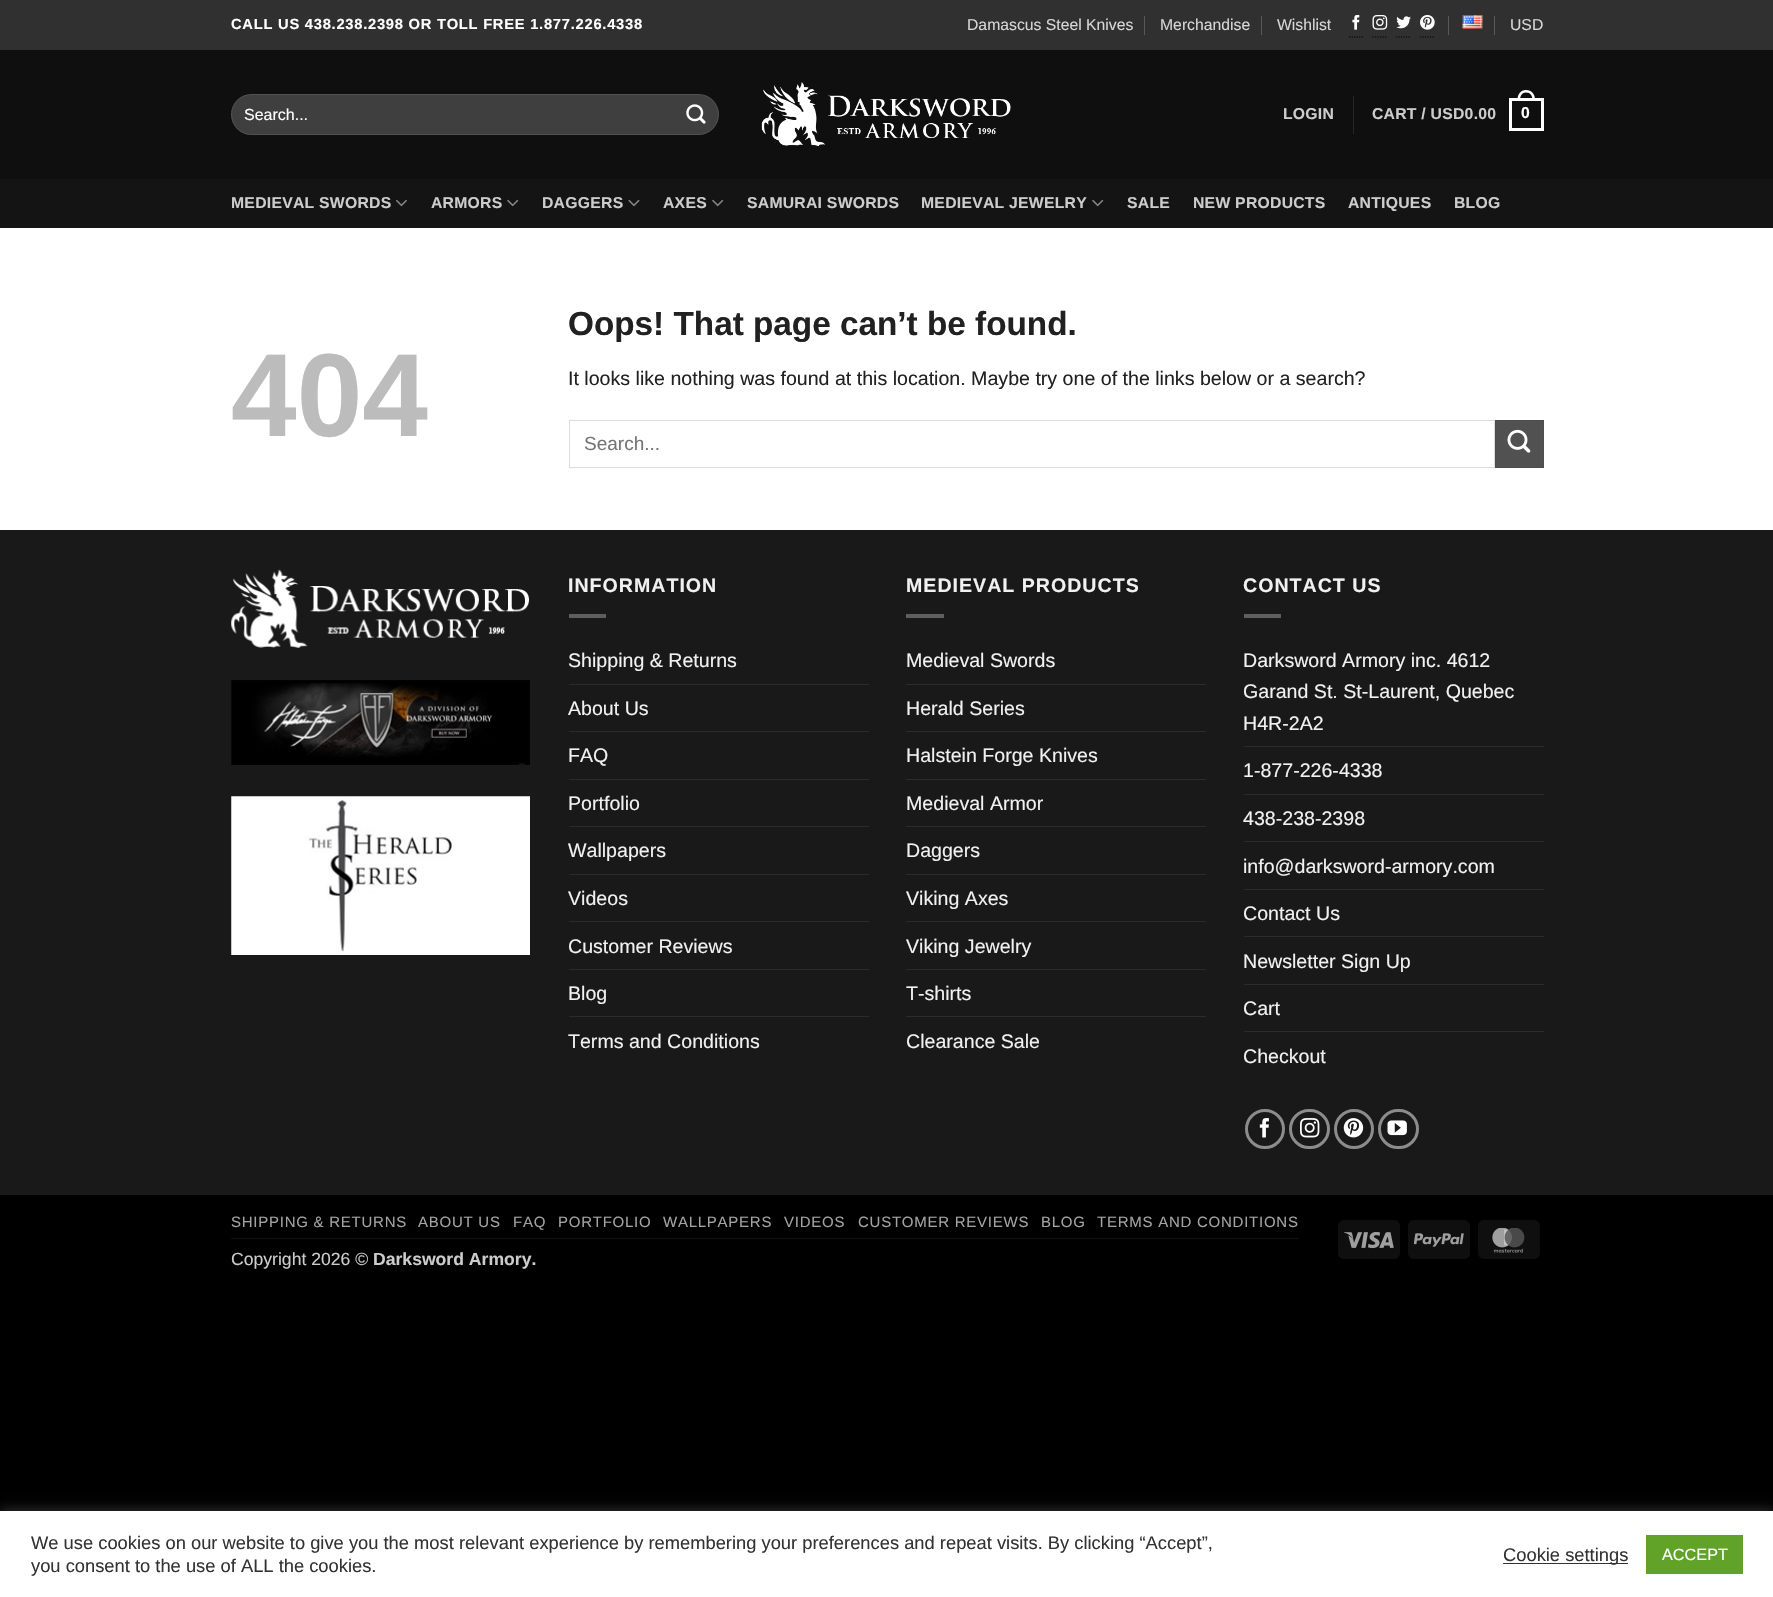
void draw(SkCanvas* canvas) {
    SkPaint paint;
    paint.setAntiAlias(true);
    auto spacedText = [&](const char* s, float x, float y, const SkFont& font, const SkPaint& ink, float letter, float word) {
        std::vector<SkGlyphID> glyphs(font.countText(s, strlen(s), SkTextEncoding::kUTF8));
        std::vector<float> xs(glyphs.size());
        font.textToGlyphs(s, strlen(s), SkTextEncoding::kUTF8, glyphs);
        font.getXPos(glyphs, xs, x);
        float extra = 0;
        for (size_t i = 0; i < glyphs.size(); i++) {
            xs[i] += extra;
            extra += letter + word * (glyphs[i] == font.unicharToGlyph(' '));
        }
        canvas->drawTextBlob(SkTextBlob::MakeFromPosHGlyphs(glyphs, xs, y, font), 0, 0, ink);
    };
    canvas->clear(0xFF000000);
    paint.setColor(0xFFFFFFFF);
    canvas->drawRect(SkRect::MakeXYWH(0, 228, 1773, 302), paint);
    paint.setColor(0xFF303030);
    canvas->drawRect(SkRect::MakeXYWH(0, 0, 1773, 50), paint);
    SkFont font1(fontMgr->matchFamilyStyle("Liberation Sans", SkFontStyle::Bold()), 14.7f);
    font1.setSubpixel(true);
    paint.setColor(0xFFFFFFFF);
    spacedText("CALL US 438.238.2398 OR TOLL FREE 1.877.226.4338", 231, 29, font1, paint, 0.75f, 0);
    SkFont font2(fontMgr->matchFamilyStyle("Liberation Sans", SkFontStyle::Normal()), 15.75f);
    font2.setSubpixel(true);
    paint.setColor(0xFFD6D6D6);
    canvas->drawString("Damascus Steel Knives", 967, 30, font2, paint);
    paint.setColor(0xFF595959);
    canvas->drawRect(SkRect::MakeXYWH(1144, 16, 1, 19), paint);
    paint.setColor(0xFFD6D6D6);
    canvas->drawString("Merchandise", 1160, 30, font2, paint);
    paint.setColor(0xFF595959);
    canvas->drawRect(SkRect::MakeXYWH(1261, 16, 1, 19), paint);
    paint.setColor(0xFFD6D6D6);
    canvas->drawString("Wishlist", 1277, 30, font2, paint);
    paint.setStyle(SkPaint::kStroke_Style);
    paint.setStrokeWidth(1.2f);
    paint.setColor(0xFF000000);
    paint.setPathEffect(SkDashPathEffect::Make({{1.25f, 1.25f}}, 0));
    canvas->drawPath(SkPathBuilder().moveTo(1349, 37).lineTo(1364, 37).detach(), paint);
    paint.setPathEffect(nullptr);
    canvas->drawImageRect(SkImages::DeferredFromEncodedData(SkData::MakeFromFileName("img1.png")), SkRect::MakeXYWH(1352, 15, 8, 15), SkSamplingOptions());
    paint.setPathEffect(SkDashPathEffect::Make({{1.25f, 1.25f}}, 0));
    canvas->drawPath(SkPathBuilder().moveTo(1372.5f, 37).lineTo(1387.5f, 37).detach(), paint);
    paint.setPathEffect(nullptr);
    canvas->drawImageRect(SkImages::DeferredFromEncodedData(SkData::MakeFromFileName("img2.png")), SkRect::MakeXYWH(1372, 15, 16, 15), SkSamplingOptions());
    paint.setPathEffect(SkDashPathEffect::Make({{1.25f, 1.25f}}, 0));
    canvas->drawPath(SkPathBuilder().moveTo(1396, 37).lineTo(1411, 37).detach(), paint);
    paint.setPathEffect(nullptr);
    canvas->drawImageRect(SkImages::DeferredFromEncodedData(SkData::MakeFromFileName("img3.png")), SkRect::MakeXYWH(1396, 16, 15, 13), SkSamplingOptions());
    paint.setPathEffect(SkDashPathEffect::Make({{1.25f, 1.25f}}, 0));
    canvas->drawPath(SkPathBuilder().moveTo(1420, 37).lineTo(1434, 37).detach(), paint);
    paint.setPathEffect(nullptr);
    canvas->drawImageRect(SkImages::DeferredFromEncodedData(SkData::MakeFromFileName("img4.png")), SkRect::MakeXYWH(1420, 15, 15, 15), SkSamplingOptions());
    paint.setStyle(SkPaint::kFill_Style);
    paint.setColor(0xFF595959);
    canvas->drawRect(SkRect::MakeXYWH(1448, 16, 1, 19), paint);
    canvas->drawImageRect(SkImages::DeferredFromEncodedData(SkData::MakeFromFileName("img5.png")), SkRect::MakeXYWH(1462, 15, 21, 14), SkSamplingOptions());
    canvas->drawRect(SkRect::MakeXYWH(1494, 16, 1, 19), paint);
    paint.setColor(0xFFD6D6D6);
    canvas->drawString("USD", 1510, 30, font2, paint);
    paint.setColor(0xFF0F0F0F);
    canvas->drawRect(SkRect::MakeXYWH(0, 50, 1773, 129), paint);
    paint.setColor(0xFF3F3F3F);
    canvas->drawRoundRect(SkRect::MakeXYWH(231, 94, 488, 41), 20.5f, 20.5f, paint);
    paint.setStyle(SkPaint::kStroke_Style);
    paint.setStrokeWidth(1);
    paint.setColor(0x17FFFFFF);
    canvas->drawRoundRect(SkRect::MakeXYWH(231.5f, 94.5f, 487, 40), 20, 20, paint);
    SkFont font3(fontMgr->matchFamilyStyle("Liberation Sans", SkFontStyle::Normal()), 16);
    font3.setSubpixel(true);
    paint.setStyle(SkPaint::kFill_Style);
    paint.setColor(0xFFFFFFFF);
    canvas->drawString("Search...", 244, 120, font3, paint);
    canvas->drawImageRect(SkImages::DeferredFromEncodedData(SkData::MakeFromFileName("img6.png")), SkRect::MakeXYWH(686, 104, 20, 20), SkSamplingOptions());
    canvas->drawImageRect(SkImages::DeferredFromEncodedData(SkData::MakeFromFileName("img7.png")), SkRect::MakeXYWH(761, 82, 250, 64), SkSamplingOptions());
    SkFont font4(fontMgr->matchFamilyStyle("Liberation Sans", SkFontStyle::Bold()), 15.75f);
    font4.setSubpixel(true);
    paint.setColor(0xFFCCCCCC);
    spacedText("LOGIN", 1283, 119, font4, paint, 0.25f, 0);
    paint.setColor(0xFF272727);
    canvas->drawRect(SkRect::MakeXYWH(1353, 96, 1, 38), paint);
    paint.setColor(0xFFCCCCCC);
    spacedText("CART / USD0.00", 1372, 119, font4, paint, 0.25f, 0);
    paint.setStyle(SkPaint::kStroke_Style);
    paint.setStrokeWidth(3);
    paint.setColor(0xFFFFFFFF);
    canvas->drawRect(SkRect::MakeXYWH(1510.5f, 99.5f, 32, 30), paint);
    paint.setStyle(SkPaint::kFill_Style);
    canvas->drawPath(SkPathBuilder(SkPathFillType::kEvenOdd).moveTo(1526, 90).cubicTo(1532, 90, 1535, 94.5f, 1535, 100).lineTo(1517.5f, 100).cubicTo(1517.5f, 94.5f, 1520.5f, 90, 1526, 90).close().moveTo(1526, 92.5f).cubicTo(1530.5f, 92.5f, 1532.5f, 96, 1532.5f, 100).lineTo(1520, 100).cubicTo(1520, 96, 1522, 92.5f, 1526, 92.5f).close().detach(), paint);
    spacedText("0", 1521, 118, font4, paint, 0.25f, 0);
    paint.setColor(0xFF141414);
    canvas->drawRect(SkRect::MakeXYWH(0, 179, 1773, 49), paint);
    paint.setColor(0xFFCCCCCC);
    spacedText("MEDIEVAL SWORDS", 231, 208, font4, paint, 0.25f, 0);
    canvas->drawImageRect(SkImages::DeferredFromEncodedData(SkData::MakeFromFileName("img8.png")), SkRect::MakeXYWH(396, 199, 11, 8), SkSamplingOptions());
    spacedText("ARMORS", 431, 208, font4, paint, 0.25f, 0);
    canvas->drawImageRect(SkImages::DeferredFromEncodedData(SkData::MakeFromFileName("img9.png")), SkRect::MakeXYWH(507, 199, 12, 8), SkSamplingOptions());
    spacedText("DAGGERS", 542, 208, font4, paint, 0.25f, 0);
    canvas->drawImageRect(SkImages::DeferredFromEncodedData(SkData::MakeFromFileName("img10.png")), SkRect::MakeXYWH(628, 199, 12, 8), SkSamplingOptions());
    spacedText("AXES", 663, 208, font4, paint, 0.25f, 0);
    canvas->drawImageRect(SkImages::DeferredFromEncodedData(SkData::MakeFromFileName("img9.png")), SkRect::MakeXYWH(712, 199, 12, 8), SkSamplingOptions());
    spacedText("SAMURAI SWORDS", 747, 208, font4, paint, 0.25f, 0);
    spacedText("MEDIEVAL JEWELRY", 921, 208, font4, paint, 0.25f, 0);
    canvas->drawImageRect(SkImages::DeferredFromEncodedData(SkData::MakeFromFileName("img9.png")), SkRect::MakeXYWH(1092, 199, 12, 8), SkSamplingOptions());
    spacedText("SALE", 1127, 208, font4, paint, 0.25f, 0);
    spacedText("NEW PRODUCTS", 1193, 208, font4, paint, 0.25f, 0);
    spacedText("ANTIQUES", 1348, 208, font4, paint, 0.25f, 0);
    spacedText("BLOG", 1454, 208, font4, paint, 0.25f, 0);
    SkFont font5(fontMgr->matchFamilyStyle("Liberation Sans", SkFontStyle::Bold()), 118);
    font5.setSubpixel(true);
    paint.setColor(0xFFBCBCBC);
    canvas->drawString("404", 231, 436, font5, paint);
    SkFont font6(fontMgr->matchFamilyStyle("Liberation Sans", SkFontStyle::Bold()), 33.3f);
    font6.setSubpixel(true);
    paint.setColor(0xFF212121);
    canvas->drawString("Oops! That page can’t be found.", 568, 335, font6, paint);
    SkFont font7(fontMgr->matchFamilyStyle("Liberation Sans", SkFontStyle::Normal()), 19.6f);
    font7.setSubpixel(true);
    canvas->drawString("It looks like nothing was found at this location. Maybe try one of the links below or a search?", 568, 385, font7, paint);
    paint.setStyle(SkPaint::kStroke_Style);
    paint.setStrokeWidth(1);
    paint.setColor(0xFFDDDDDD);
    canvas->drawRect(SkRect::MakeXYWH(569.5f, 420.5f, 925, 47), paint);
    SkFont font8(fontMgr->matchFamilyStyle("Liberation Sans", SkFontStyle::Normal()), 19);
    font8.setSubpixel(true);
    paint.setStyle(SkPaint::kFill_Style);
    paint.setColor(0xFF757575);
    canvas->drawString("Search...", 584, 450, font8, paint);
    paint.setColor(0xFF515151);
    canvas->drawRect(SkRect::MakeXYWH(1495.5f, 420.5f, 48, 47), paint);
    paint.setStyle(SkPaint::kStroke_Style);
    paint.setColor(0xFF4D4D4D);
    canvas->drawRect(SkRect::MakeXYWH(1495.5f, 420.5f, 48, 47), paint);
    canvas->drawImageRect(SkImages::DeferredFromEncodedData(SkData::MakeFromFileName("img11.png")), SkRect::MakeXYWH(1507, 429, 24, 24), SkSamplingOptions());
    paint.setStyle(SkPaint::kFill_Style);
    paint.setColor(0xFF191919);
    canvas->drawRect(SkRect::MakeXYWH(0, 530, 1773, 665), paint);
    canvas->drawImageRect(SkImages::DeferredFromEncodedData(SkData::MakeFromFileName("img12.png")), SkRect::MakeXYWH(231, 569, 298, 79), SkSamplingOptions());
    canvas->drawImageRect(SkImages::DeferredFromEncodedData(SkData::MakeFromFileName("img13.png")), SkRect::MakeXYWH(231, 680, 299, 85), SkSamplingOptions());
    canvas->drawImageRect(SkImages::DeferredFromEncodedData(SkData::MakeFromFileName("img14.png")), SkRect::MakeXYWH(231, 796, 299, 159), SkSamplingOptions());
    SkFont font9(fontMgr->matchFamilyStyle("Liberation Sans", SkFontStyle::Bold()), 19.6f);
    font9.setSubpixel(true);
    paint.setColor(0xFFF1F1F1);
    spacedText("INFORMATION", 568, 592, font9, paint, 1, 0);
    paint.setColor(0xFF5E5E5E);
    canvas->drawRect(SkRect::MakeXYWH(569, 614, 37, 4), paint);
    paint.setColor(0xFFF1F1F1);
    canvas->drawString("Shipping & Returns", 568, 667, font7, paint);
    paint.setColor(0xFF2B2B2B);
    canvas->drawRect(SkRect::MakeXYWH(569, 684, 300, 1), paint);
    paint.setColor(0xFFF1F1F1);
    canvas->drawString("About Us", 568, 715, font7, paint);
    paint.setColor(0xFF2B2B2B);
    canvas->drawRect(SkRect::MakeXYWH(569, 731, 300, 1), paint);
    paint.setColor(0xFFF1F1F1);
    canvas->drawString("FAQ", 568, 762, font7, paint);
    paint.setColor(0xFF2B2B2B);
    canvas->drawRect(SkRect::MakeXYWH(569, 779, 300, 1), paint);
    paint.setColor(0xFFF1F1F1);
    canvas->drawString("Portfolio", 568, 810, font7, paint);
    paint.setColor(0xFF2B2B2B);
    canvas->drawRect(SkRect::MakeXYWH(569, 826, 300, 1), paint);
    paint.setColor(0xFFF1F1F1);
    canvas->drawString("Wallpapers", 568, 857, font7, paint);
    paint.setColor(0xFF2B2B2B);
    canvas->drawRect(SkRect::MakeXYWH(569, 874, 300, 1), paint);
    paint.setColor(0xFFF1F1F1);
    canvas->drawString("Videos", 568, 905, font7, paint);
    paint.setColor(0xFF2B2B2B);
    canvas->drawRect(SkRect::MakeXYWH(569, 921, 300, 1), paint);
    paint.setColor(0xFFF1F1F1);
    canvas->drawString("Customer Reviews", 568, 953, font7, paint);
    paint.setColor(0xFF2B2B2B);
    canvas->drawRect(SkRect::MakeXYWH(569, 969, 300, 1), paint);
    paint.setColor(0xFFF1F1F1);
    canvas->drawString("Blog", 568, 1000, font7, paint);
    paint.setColor(0xFF2B2B2B);
    canvas->drawRect(SkRect::MakeXYWH(569, 1016, 300, 1), paint);
    paint.setColor(0xFFF1F1F1);
    canvas->drawString("Terms and Conditions", 568, 1048, font7, paint);
    spacedText("MEDIEVAL PRODUCTS", 906, 592, font9, paint, 1, 0);
    paint.setColor(0xFF5E5E5E);
    canvas->drawRect(SkRect::MakeXYWH(906, 614, 38, 4), paint);
    paint.setColor(0xFFF1F1F1);
    canvas->drawString("Medieval Swords", 906, 667, font7, paint);
    paint.setColor(0xFF2B2B2B);
    canvas->drawRect(SkRect::MakeXYWH(906, 684, 300, 1), paint);
    paint.setColor(0xFFF1F1F1);
    canvas->drawString("Herald Series", 906, 715, font7, paint);
    paint.setColor(0xFF2B2B2B);
    canvas->drawRect(SkRect::MakeXYWH(906, 731, 300, 1), paint);
    paint.setColor(0xFFF1F1F1);
    canvas->drawString("Halstein Forge Knives", 906, 762, font7, paint);
    paint.setColor(0xFF2B2B2B);
    canvas->drawRect(SkRect::MakeXYWH(906, 779, 300, 1), paint);
    paint.setColor(0xFFF1F1F1);
    canvas->drawString("Medieval Armor", 906, 810, font7, paint);
    paint.setColor(0xFF2B2B2B);
    canvas->drawRect(SkRect::MakeXYWH(906, 826, 300, 1), paint);
    paint.setColor(0xFFF1F1F1);
    canvas->drawString("Daggers", 906, 857, font7, paint);
    paint.setColor(0xFF2B2B2B);
    canvas->drawRect(SkRect::MakeXYWH(906, 874, 300, 1), paint);
    paint.setColor(0xFFF1F1F1);
    canvas->drawString("Viking Axes", 906, 905, font7, paint);
    paint.setColor(0xFF2B2B2B);
    canvas->drawRect(SkRect::MakeXYWH(906, 921, 300, 1), paint);
    paint.setColor(0xFFF1F1F1);
    canvas->drawString("Viking Jewelry", 906, 953, font7, paint);
    paint.setColor(0xFF2B2B2B);
    canvas->drawRect(SkRect::MakeXYWH(906, 969, 300, 1), paint);
    paint.setColor(0xFFF1F1F1);
    canvas->drawString("T-shirts", 906, 1000, font7, paint);
    paint.setColor(0xFF2B2B2B);
    canvas->drawRect(SkRect::MakeXYWH(906, 1016, 300, 1), paint);
    paint.setColor(0xFFF1F1F1);
    canvas->drawString("Clearance Sale", 906, 1048, font7, paint);
    spacedText("CONTACT US", 1243, 592, font9, paint, 1, 0);
    paint.setColor(0xFF5E5E5E);
    canvas->drawRect(SkRect::MakeXYWH(1244, 614, 37, 4), paint);
    paint.setColor(0xFFF1F1F1);
    canvas->drawString("Darksword Armory inc. 4612", 1243, 667, font7, paint);
    canvas->drawString("Garand St. St-Laurent, Quebec", 1243, 698, font7, paint);
    canvas->drawString("H4R-2A2", 1243, 730, font7, paint);
    paint.setColor(0xFF2B2B2B);
    canvas->drawRect(SkRect::MakeXYWH(1244, 746, 300, 1), paint);
    paint.setColor(0xFFF1F1F1);
    canvas->drawString("1-877-226-4338", 1243, 777, font7, paint);
    paint.setColor(0xFF2B2B2B);
    canvas->drawRect(SkRect::MakeXYWH(1244, 794, 300, 1), paint);
    paint.setColor(0xFFF1F1F1);
    canvas->drawString("438-238-2398", 1243, 825, font7, paint);
    paint.setColor(0xFF2B2B2B);
    canvas->drawRect(SkRect::MakeXYWH(1244, 841, 300, 1), paint);
    paint.setColor(0xFFF1F1F1);
    canvas->drawString("info@darksword-armory.com", 1243, 873, font7, paint);
    paint.setColor(0xFF2B2B2B);
    canvas->drawRect(SkRect::MakeXYWH(1244, 889, 300, 1), paint);
    paint.setColor(0xFFF1F1F1);
    canvas->drawString("Contact Us", 1243, 920, font7, paint);
    paint.setColor(0xFF2B2B2B);
    canvas->drawRect(SkRect::MakeXYWH(1244, 936, 300, 1), paint);
    paint.setColor(0xFFF1F1F1);
    canvas->drawString("Newsletter Sign Up", 1243, 968, font7, paint);
    paint.setColor(0xFF2B2B2B);
    canvas->drawRect(SkRect::MakeXYWH(1244, 984, 300, 1), paint);
    paint.setColor(0xFFF1F1F1);
    canvas->drawString("Cart", 1243, 1015, font7, paint);
    paint.setColor(0xFF2B2B2B);
    canvas->drawRect(SkRect::MakeXYWH(1244, 1031, 300, 1), paint);
    paint.setColor(0xFFF1F1F1);
    canvas->drawString("Checkout", 1243, 1063, font7, paint);
    paint.setStyle(SkPaint::kStroke_Style);
    paint.setStrokeWidth(3);
    paint.setColor(0xFF8C8C8C);
    canvas->drawCircle(1265, 1129, 18.5f, paint);
    canvas->drawImageRect(SkImages::DeferredFromEncodedData(SkData::MakeFromFileName("img15.png")), SkRect::MakeXYWH(1259, 1118, 10, 20), SkSamplingOptions());
    canvas->drawRoundRect(SkRect::MakeXYWH(1290.5f, 1110.5f, 38, 37), 18.5f, 18.5f, paint);
    canvas->drawImageRect(SkImages::DeferredFromEncodedData(SkData::MakeFromFileName("img16.png")), SkRect::MakeXYWH(1300, 1118, 20, 20), SkSamplingOptions());
    canvas->drawCircle(1354, 1129, 18.5f, paint);
    canvas->drawImageRect(SkImages::DeferredFromEncodedData(SkData::MakeFromFileName("img17.png")), SkRect::MakeXYWH(1343, 1118, 21, 20), SkSamplingOptions());
    canvas->drawRoundRect(SkRect::MakeXYWH(1379.5f, 1110.5f, 38, 37), 18.5f, 18.5f, paint);
    canvas->drawImageRect(SkImages::DeferredFromEncodedData(SkData::MakeFromFileName("img18.png")), SkRect::MakeXYWH(1387, 1120, 20, 16), SkSamplingOptions());
    paint.setStyle(SkPaint::kFill_Style);
    paint.setColor(0xFF101010);
    canvas->drawRect(SkRect::MakeXYWH(231, 1238, 1068, 1), paint);
    SkFont font10(fontMgr->matchFamilyStyle("Liberation Sans", SkFontStyle::Normal()), 15);
    font10.setSubpixel(true);
    paint.setColor(0xFFA3A3A3);
    spacedText("SHIPPING & RETURNS", 231, 1227, font10, paint, 0.75f, 0);
    spacedText("ABOUT US", 418, 1227, font10, paint, 0.75f, 0);
    spacedText("FAQ", 513, 1227, font10, paint, 0.75f, 0);
    spacedText("PORTFOLIO", 558, 1227, font10, paint, 0.75f, 0);
    spacedText("WALLPAPERS", 663, 1227, font10, paint, 0.75f, 0);
    spacedText("VIDEOS", 784, 1227, font10, paint, 0.75f, 0);
    spacedText("CUSTOMER REVIEWS", 858, 1227, font10, paint, 0.75f, 0);
    spacedText("BLOG", 1041, 1227, font10, paint, 0.75f, 0);
    spacedText("TERMS AND CONDITIONS", 1097, 1227, font10, paint, 0.75f, 0);
    SkFont font11(fontMgr->matchFamilyStyle("Liberation Sans", SkFontStyle::Normal()), 17.6f);
    font11.setSubpixel(true);
    paint.setColor(0xFFCCCCCC);
    canvas->drawString("Copyright 2026 ©", 231, 1265, font11, paint);
    SkFont font12(fontMgr->matchFamilyStyle("Liberation Sans", SkFontStyle::Bold()), 17.6f);
    font12.setSubpixel(true);
    canvas->drawString("Darksword Armory.", 373, 1265, font12, paint);
    paint.setColor(0xFF0F0F0F);
    canvas->drawRoundRect(SkRect::MakeXYWH(1338, 1220, 62, 39), 6, 6, paint);
    canvas->drawImageRect(SkImages::DeferredFromEncodedData(SkData::MakeFromFileName("img19.png")), SkRect::MakeXYWH(1344, 1231, 50, 18), SkSamplingOptions());
    canvas->drawRoundRect(SkRect::MakeXYWH(1408, 1220, 62, 39), 6, 6, paint);
    canvas->drawImageRect(SkImages::DeferredFromEncodedData(SkData::MakeFromFileName("img20.png")), SkRect::MakeXYWH(1414, 1233, 50, 14), SkSamplingOptions());
    canvas->drawRoundRect(SkRect::MakeXYWH(1478, 1220, 62, 39), 6, 6, paint);
    canvas->drawImageRect(SkImages::DeferredFromEncodedData(SkData::MakeFromFileName("img21.png")), SkRect::MakeXYWH(1492, 1228, 33, 25), SkSamplingOptions());
    paint.setColor(0x4DACABAB);
    paint.setMaskFilter(SkMaskFilter::MakeBlur(kNormal_SkBlurStyle, 6));
    canvas->drawRect(SkRect::MakeXYWH(0, 1510, 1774, 86), paint);
    paint.setMaskFilter(nullptr);
    paint.setColor(0xFFFFFFFF);
    canvas->drawRect(SkRect::MakeXYWH(0, 1511, 1773, 86), paint);
    SkFont font13(fontMgr->matchFamilyStyle("Liberation Sans", SkFontStyle::Normal()), 18.33f);
    font13.setSubpixel(true);
    paint.setColor(0xFF333333);
    canvas->drawString("We use cookies on our website to give you the most relevant experience by remembering your preferences and repeat visits. By clicking “Accept”,", 31, 1549, font13, paint);
    canvas->drawString("you consent to the use of ALL the cookies.", 31, 1572, font13, paint);
    canvas->drawRect(SkRect::MakeXYWH(1503, 1563, 125, 1), paint);
    canvas->drawString("Cookie settings", 1503, 1561, font13, paint);
    paint.setColor(0xFF61A229);
    canvas->drawRect(SkRect::MakeXYWH(1646, 1535, 97, 39), paint);
    SkFont font14(fontMgr->matchFamilyStyle("Liberation Sans", SkFontStyle::Normal()), 16.25f);
    font14.setSubpixel(true);
    paint.setColor(0xFFFFFFFF);
    canvas->drawString("ACCEPT", 1662, 1560, font14, paint);
}
